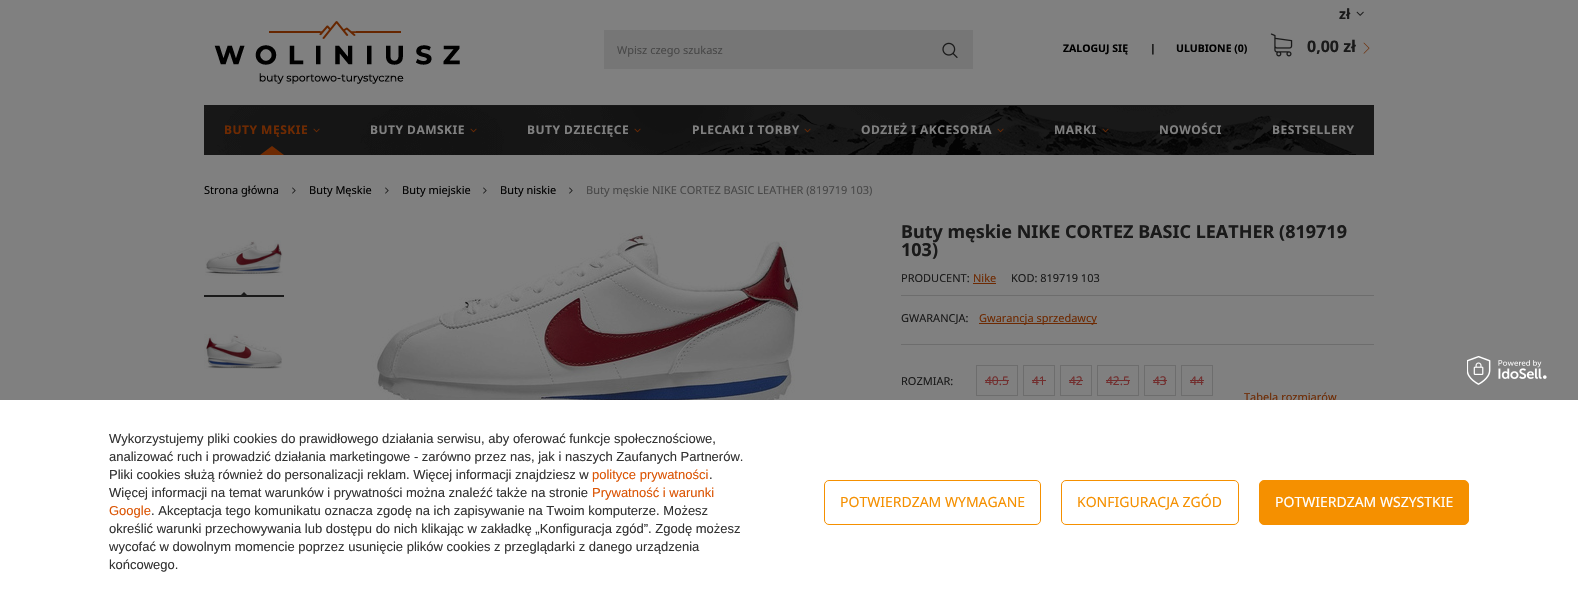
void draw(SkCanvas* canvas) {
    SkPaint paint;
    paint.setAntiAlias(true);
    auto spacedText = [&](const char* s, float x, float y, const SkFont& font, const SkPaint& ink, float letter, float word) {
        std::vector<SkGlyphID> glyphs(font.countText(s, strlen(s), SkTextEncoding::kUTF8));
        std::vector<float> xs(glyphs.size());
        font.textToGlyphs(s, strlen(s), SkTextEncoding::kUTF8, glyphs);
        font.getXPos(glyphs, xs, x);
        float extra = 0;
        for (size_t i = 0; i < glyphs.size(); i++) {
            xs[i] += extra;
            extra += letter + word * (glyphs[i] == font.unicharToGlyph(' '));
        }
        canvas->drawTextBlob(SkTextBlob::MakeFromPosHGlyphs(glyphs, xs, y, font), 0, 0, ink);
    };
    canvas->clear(0xFF808080);
    SkFont font1(fontMgr->matchFamilyStyle("Noto Sans", SkFontStyle::Bold()), 14);
    font1.setSubpixel(true);
    paint.setColor(0xFF1A1A1A);
    canvas->drawString("zł", 1339, 19, font1, paint);
    canvas->drawImageRect(SkImages::DeferredFromEncodedData(SkData::MakeFromFileName("img1.png")), SkRect::MakeXYWH(1356, 11, 8, 5), SkSamplingOptions());
    canvas->drawImageRect(SkImages::DeferredFromEncodedData(SkData::MakeFromFileName("img2.png")), SkRect::MakeXYWH(214, 21, 246, 63), SkSamplingOptions());
    paint.setColor(0xFF767676);
    canvas->drawRect(SkRect::MakeXYWH(604, 30, 369, 39), paint);
    SkFont font2(fontMgr->matchFamilyStyle("Noto Sans", SkFontStyle::Normal()), 11);
    font2.setSubpixel(true);
    paint.setColor(0xFF484848);
    canvas->drawString("Wpisz czego szukasz", 617, 54, font2, paint);
    canvas->drawImageRect(SkImages::DeferredFromEncodedData(SkData::MakeFromFileName("img3.png")), SkRect::MakeXYWH(942, 42, 16, 16), SkSamplingOptions());
    SkFont font3(fontMgr->matchFamilyStyle("Noto Sans", SkFontStyle::Bold()), 10.5f);
    font3.setSubpixel(true);
    paint.setColor(0xFF000000);
    canvas->drawString("ZALOGUJ SIĘ", 1063, 52, font3, paint);
    canvas->drawString("|", 1150, 52, font3, paint);
    canvas->drawString("ULUBIONE (0)", 1176, 52, font3, paint);
    canvas->drawImageRect(SkImages::DeferredFromEncodedData(SkData::MakeFromFileName("img4.png")), SkRect::MakeXYWH(1270, 33, 23, 24), SkSamplingOptions());
    SkFont font4(fontMgr->matchFamilyStyle("Noto Sans", SkFontStyle::Bold()), 16);
    font4.setSubpixel(true);
    paint.setColor(0xFF1A1A1A);
    canvas->drawString("0,00 zł", 1307, 52, font4, paint);
    canvas->drawImageRect(SkImages::DeferredFromEncodedData(SkData::MakeFromFileName("img5.png")), SkRect::MakeXYWH(1363, 42, 7, 12), SkSamplingOptions());
    paint.setColor(0xFF171717);
    canvas->drawRect(SkRect::MakeXYWH(204, 105, 1170, 1), paint);
    canvas->drawImageRect(SkImages::DeferredFromEncodedData(SkData::MakeFromFileName("img6.png")), SkRect::MakeXYWH(204, 106, 1170, 49), SkSamplingOptions());
    SkFont font5(fontMgr->matchFamilyStyle("Noto Sans", SkFontStyle::Bold()), 12);
    font5.setSubpixel(true);
    paint.setColor(0xFF6E2A02);
    spacedText("BUTY MĘSKIE", 224, 134, font5, paint, 0.5f, 0);
    canvas->drawImageRect(SkImages::DeferredFromEncodedData(SkData::MakeFromFileName("img7.png")), SkRect::MakeXYWH(313, 128, 7, 5), SkSamplingOptions());
    canvas->drawPath(SkPathBuilder().moveTo(284, 155).lineTo(260, 155).lineTo(272, 146).close().detach(), paint);
    paint.setColor(0xFF808080);
    spacedText("BUTY DAMSKIE", 370, 134, font5, paint, 0.5f, 0);
    canvas->drawImageRect(SkImages::DeferredFromEncodedData(SkData::MakeFromFileName("img8.png")), SkRect::MakeXYWH(470, 128, 7, 5), SkSamplingOptions());
    spacedText("BUTY DZIECIĘCE", 527, 134, font5, paint, 0.5f, 0);
    canvas->drawImageRect(SkImages::DeferredFromEncodedData(SkData::MakeFromFileName("img8.png")), SkRect::MakeXYWH(634, 128, 7, 5), SkSamplingOptions());
    spacedText("PLECAKI I TORBY", 692, 134, font5, paint, 0.5f, 0);
    canvas->drawImageRect(SkImages::DeferredFromEncodedData(SkData::MakeFromFileName("img9.png")), SkRect::MakeXYWH(804, 128, 7, 5), SkSamplingOptions());
    spacedText("ODZIEŻ I AKCESORIA", 861, 134, font5, paint, 0.5f, 0);
    canvas->drawImageRect(SkImages::DeferredFromEncodedData(SkData::MakeFromFileName("img10.png")), SkRect::MakeXYWH(997, 128, 7, 5), SkSamplingOptions());
    spacedText("MARKI", 1054, 134, font5, paint, 0.5f, 0);
    canvas->drawImageRect(SkImages::DeferredFromEncodedData(SkData::MakeFromFileName("img11.png")), SkRect::MakeXYWH(1102, 128, 7, 5), SkSamplingOptions());
    spacedText("NOWOŚCI", 1159, 134, font5, paint, 0.5f, 0);
    spacedText("BESTSELLERY", 1272, 134, font5, paint, 0.5f, 0);
    paint.setColor(0xFF000000);
    canvas->drawString("Strona główna", 204, 194, font2, paint);
    canvas->drawImageRect(SkImages::DeferredFromEncodedData(SkData::MakeFromFileName("img12.png")), SkRect::MakeXYWH(292, 187, 4, 7), SkSamplingOptions());
    canvas->drawString("Buty Męskie", 309, 194, font2, paint);
    canvas->drawImageRect(SkImages::DeferredFromEncodedData(SkData::MakeFromFileName("img12.png")), SkRect::MakeXYWH(385, 187, 4, 7), SkSamplingOptions());
    canvas->drawString("Buty miejskie", 402, 194, font2, paint);
    canvas->drawImageRect(SkImages::DeferredFromEncodedData(SkData::MakeFromFileName("img12.png")), SkRect::MakeXYWH(483, 187, 4, 7), SkSamplingOptions());
    canvas->drawString("Buty niskie", 500, 194, font2, paint);
    canvas->drawImageRect(SkImages::DeferredFromEncodedData(SkData::MakeFromFileName("img12.png")), SkRect::MakeXYWH(569, 187, 4, 7), SkSamplingOptions());
    paint.setColor(0xFF484848);
    canvas->drawString("Buty męskie NIKE CORTEZ BASIC LEATHER (819719 103)", 586, 194, font2, paint);
    canvas->drawImageRect(SkImages::DeferredFromEncodedData(SkData::MakeFromFileName("img13.png")), SkRect::MakeXYWH(205, 240, 78, 36), SkSamplingOptions());
    paint.setColor(0xFF1A1A1A);
    canvas->drawPath(SkPathBuilder().moveTo(248, 296).lineTo(240, 296).lineTo(244, 292).close().detach(), paint);
    canvas->drawRect(SkRect::MakeXYWH(204, 295, 80, 2), paint);
    canvas->drawImageRect(SkImages::DeferredFromEncodedData(SkData::MakeFromFileName("img14.png")), SkRect::MakeXYWH(204, 334, 78, 35), SkSamplingOptions());
    canvas->drawImageRect(SkImages::DeferredFromEncodedData(SkData::MakeFromFileName("img15.png")), SkRect::MakeXYWH(371, 233, 433, 167), SkSamplingOptions());
    SkFont font6(fontMgr->matchFamilyStyle("Noto Sans", SkFontStyle::Bold()), 18);
    font6.setSubpixel(true);
    canvas->drawString("Buty męskie NIKE CORTEZ BASIC LEATHER (819719", 901, 238, font6, paint);
    canvas->drawString("103)", 901, 256, font6, paint);
    paint.setColor(0xFF6D6D6D);
    canvas->drawRect(SkRect::MakeXYWH(901, 295, 473, 1), paint);
    paint.setColor(0xFF1A1A1A);
    canvas->drawString("PRODUCENT:", 901, 282, font2, paint);
    paint.setColor(0xFF6E2A02);
    canvas->drawString("Nike", 973, 282, font2, paint);
    canvas->drawRect(SkRect::MakeXYWH(973, 283, 23, 1), paint);
    paint.setColor(0xFF1A1A1A);
    canvas->drawString("KOD: 819719 103", 1011, 282, font2, paint);
    paint.setColor(0xFF6D6D6D);
    canvas->drawRect(SkRect::MakeXYWH(901, 344, 473, 1), paint);
    paint.setColor(0xFF1A1A1A);
    canvas->drawString("GWARANCJA:", 901, 322, font2, paint);
    paint.setColor(0xFF6E2A02);
    canvas->drawRect(SkRect::MakeXYWH(979, 323, 118, 1), paint);
    canvas->drawString("Gwarancja sprzedawcy", 979, 322, font2, paint);
    paint.setColor(0xFF1A1A1A);
    canvas->drawString("ROZMIAR:", 901, 385, font2, paint);
    paint.setStyle(SkPaint::kStroke_Style);
    paint.setStrokeWidth(1);
    paint.setColor(0xFF6D6D6D);
    canvas->drawRect(SkRect::MakeXYWH(976.5f, 365.5f, 41, 30), paint);
    SkFont font7(fontMgr->matchFamilyStyle("Noto Sans", SkFontStyle::Normal()), 12);
    font7.setSubpixel(true);
    paint.setStyle(SkPaint::kFill_Style);
    paint.setColor(0xFF722E2E);
    canvas->drawString("40.5", 985, 385, font7, paint);
    canvas->drawRect(SkRect::MakeXYWH(985, 380, 24, 1), paint);
    paint.setStyle(SkPaint::kStroke_Style);
    paint.setColor(0xFF6D6D6D);
    canvas->drawRect(SkRect::MakeXYWH(1023.5f, 365.5f, 31, 30), paint);
    paint.setStyle(SkPaint::kFill_Style);
    paint.setColor(0xFF722E2E);
    canvas->drawString("41", 1032, 385, font7, paint);
    canvas->drawRect(SkRect::MakeXYWH(1032, 380, 14, 1), paint);
    paint.setStyle(SkPaint::kStroke_Style);
    paint.setColor(0xFF6D6D6D);
    canvas->drawRect(SkRect::MakeXYWH(1060.5f, 365.5f, 31, 30), paint);
    paint.setStyle(SkPaint::kFill_Style);
    paint.setColor(0xFF722E2E);
    canvas->drawString("42", 1069, 385, font7, paint);
    canvas->drawRect(SkRect::MakeXYWH(1069, 380, 14, 1), paint);
    paint.setStyle(SkPaint::kStroke_Style);
    paint.setColor(0xFF6D6D6D);
    canvas->drawRect(SkRect::MakeXYWH(1097.5f, 365.5f, 41, 30), paint);
    paint.setStyle(SkPaint::kFill_Style);
    paint.setColor(0xFF722E2E);
    canvas->drawString("42.5", 1106, 385, font7, paint);
    canvas->drawRect(SkRect::MakeXYWH(1106, 380, 24, 1), paint);
    paint.setStyle(SkPaint::kStroke_Style);
    paint.setColor(0xFF6D6D6D);
    canvas->drawRect(SkRect::MakeXYWH(1144.5f, 365.5f, 31, 30), paint);
    paint.setStyle(SkPaint::kFill_Style);
    paint.setColor(0xFF722E2E);
    canvas->drawString("43", 1153, 385, font7, paint);
    canvas->drawRect(SkRect::MakeXYWH(1153, 380, 14, 1), paint);
    paint.setStyle(SkPaint::kStroke_Style);
    paint.setColor(0xFF6D6D6D);
    canvas->drawRect(SkRect::MakeXYWH(1181.5f, 365.5f, 31, 30), paint);
    paint.setStyle(SkPaint::kFill_Style);
    paint.setColor(0xFF722E2E);
    canvas->drawString("44", 1190, 385, font7, paint);
    canvas->drawRect(SkRect::MakeXYWH(1190, 380, 14, 1), paint);
    paint.setColor(0xFF6E2A02);
    canvas->drawString("Tabela rozmiarów", 1244, 401, font2, paint);
    paint.setColor(0xFFFFFFFF);
    canvas->drawRect(SkRect::MakeXYWH(0, 400, 1578, 204), paint);
    canvas->drawImageRect(SkImages::DeferredFromEncodedData(SkData::MakeFromFileName("img16.png")), SkRect::MakeXYWH(1467, 356, 80, 29), SkSamplingOptions());
    SkFont font8(fontMgr->matchFamilyStyle("Liberation Sans", SkFontStyle::Normal()), 13);
    font8.setSubpixel(true);
    paint.setColor(0xFF333333);
    canvas->drawString("Wykorzystujemy pliki cookies do prawidłowego działania serwisu, aby oferować funkcje społecznościowe,", 109, 443, font8, paint);
    canvas->drawString("analizować ruch i prowadzić działania marketingowe - zarówno przez nas, jak i naszych Zaufanych Partnerów.", 109, 461, font8, paint);
    canvas->drawString("Pliki cookies służą również do personalizacji reklam. Więcej informacji znajdziesz w", 109, 479, font8, paint);
    paint.setColor(0xFFDB5403);
    canvas->drawString("polityce prywatności", 592, 479, font8, paint);
    paint.setColor(0xFF333333);
    canvas->drawString(".", 709, 479, font8, paint);
    canvas->drawString("Więcej informacji na temat warunków i prywatności można znaleźć także na stronie", 109, 497, font8, paint);
    paint.setColor(0xFFDB5403);
    canvas->drawString("Prywatność i warunki", 592, 497, font8, paint);
    canvas->drawString("Google", 109, 515, font8, paint);
    paint.setColor(0xFF333333);
    canvas->drawString(". Akceptacja tego komunikatu oznacza zgodę na ich zapisywanie na Twoim komputerze. Możesz", 151, 515, font8, paint);
    canvas->drawString("określić warunki przechowywania lub dostępu do nich klikając w zakładkę „Konfiguracja zgód”. Zgodę możesz", 109, 533, font8, paint);
    canvas->drawString("wycofać w dowolnym momencie poprzez usunięcie plików cookies z przeglądarki z danego urządzenia", 109, 551, font8, paint);
    canvas->drawString("końcowego.", 109, 569, font8, paint);
    paint.setStyle(SkPaint::kStroke_Style);
    paint.setColor(0xFFF59000);
    canvas->drawRoundRect(SkRect::MakeXYWH(824.5f, 480.5f, 216, 44), 4.5f, 4.5f, paint);
    SkFont font9(fontMgr->matchFamilyStyle("Noto Sans", SkFontStyle::Normal()), 14);
    font9.setSubpixel(true);
    paint.setStyle(SkPaint::kFill_Style);
    canvas->drawString("POTWIERDZAM WYMAGANE", 840, 507, font9, paint);
    paint.setStyle(SkPaint::kStroke_Style);
    canvas->drawRoundRect(SkRect::MakeXYWH(1061.5f, 480.5f, 177, 44), 4.5f, 4.5f, paint);
    paint.setStyle(SkPaint::kFill_Style);
    canvas->drawString("KONFIGURACJA ZGÓD", 1077, 507, font9, paint);
    canvas->drawRoundRect(SkRect::MakeXYWH(1259.5f, 480.5f, 209, 44), 4.5f, 4.5f, paint);
    paint.setStyle(SkPaint::kStroke_Style);
    canvas->drawRoundRect(SkRect::MakeXYWH(1259.5f, 480.5f, 209, 44), 4.5f, 4.5f, paint);
    paint.setStyle(SkPaint::kFill_Style);
    paint.setColor(0xFFFFFFFF);
    canvas->drawString("POTWIERDZAM WSZYSTKIE", 1275, 507, font9, paint);
}
